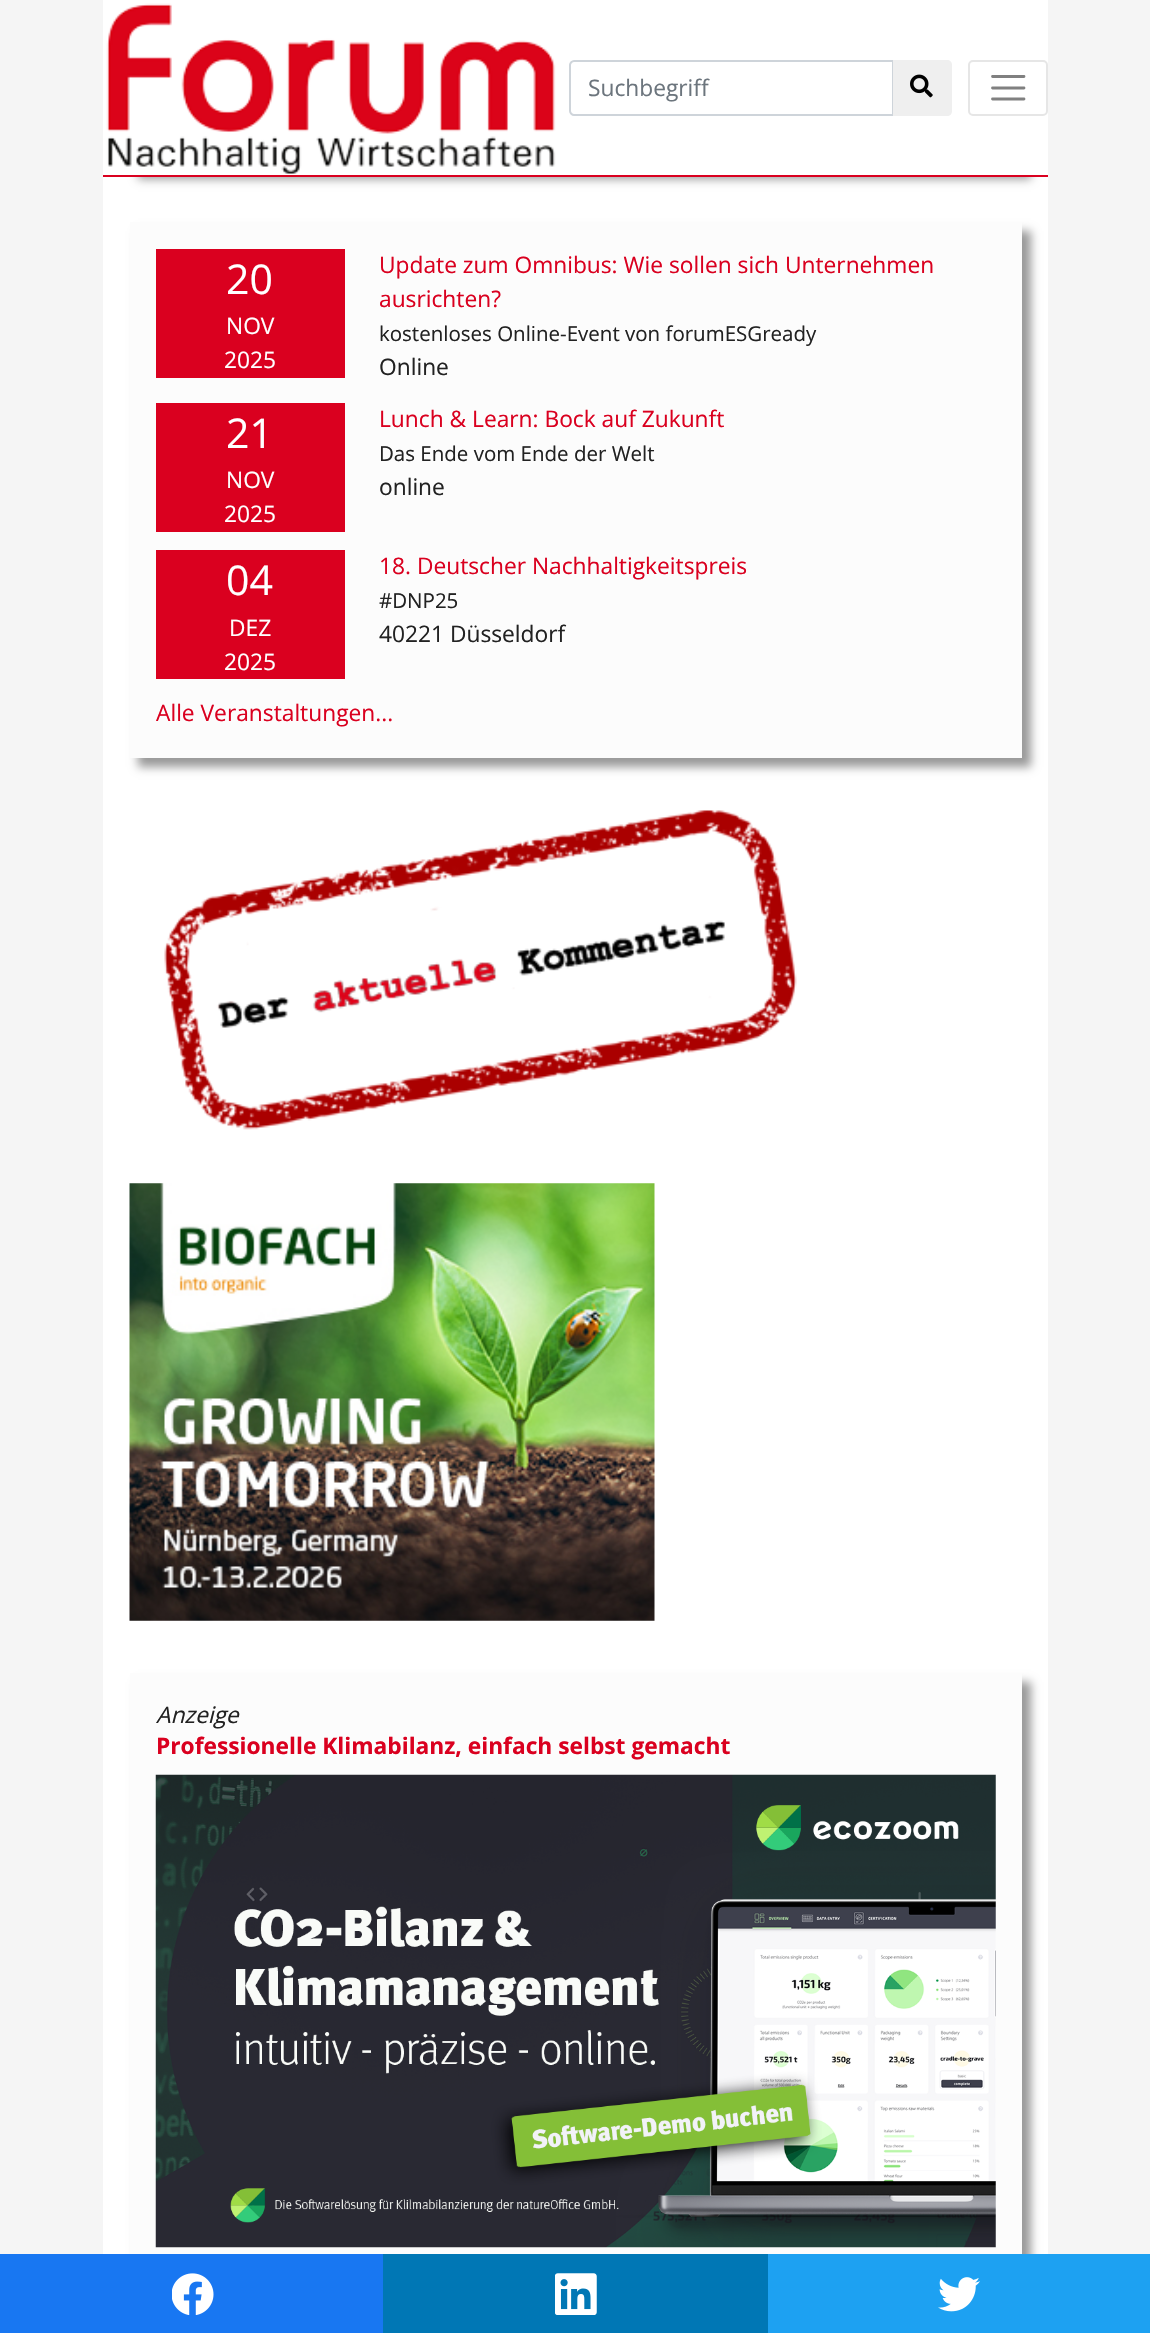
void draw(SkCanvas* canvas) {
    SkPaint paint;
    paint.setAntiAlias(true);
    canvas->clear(0xFFF5F5F5);
    paint.setColor(0xFFFFFFFF);
    canvas->drawRect(SkRect::MakeXYWH(103, 177, 945, 2077), paint);
    paint.setColor(0xFF999999);
    paint.setMaskFilter(SkMaskFilter::MakeBlur(kNormal_SkBlurStyle, 4.5f));
    canvas->drawRect(SkRect::MakeXYWH(138, -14, 893, 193), paint);
    paint.setMaskFilter(nullptr);
    paint.setColor(0xFFFFFFFF);
    canvas->drawRect(SkRect::MakeXYWH(103, 0, 945, 175), paint);
    paint.setColor(0xFFDA001F);
    canvas->drawRect(SkRect::MakeXYWH(103, 175, 945, 2), paint);
    canvas->drawImageRect(SkImages::DeferredFromEncodedData(SkData::MakeFromFileName("img1.png")), SkRect::MakeXYWH(106, 3, 450, 171), SkSamplingOptions());
    paint.setStyle(SkPaint::kStroke_Style);
    paint.setStrokeWidth(2);
    paint.setColor(0xFFCED4DA);
    canvas->drawPath(SkPathBuilder().moveTo(574, 61).lineTo(893, 61).lineTo(893, 115).lineTo(574, 115).cubicTo(572, 115, 570, 113, 570, 111).lineTo(570, 65).cubicTo(570, 63, 572, 61, 574, 61).close().detach(), paint);
    SkFont font1(fontMgr->matchFamilyStyle("Open Sans", SkFontStyle::Normal()), 22.75f);
    font1.setSubpixel(true);
    paint.setStyle(SkPaint::kFill_Style);
    paint.setColor(0xFF6C757D);
    canvas->drawString("Suchbegriff", 588, 96, font1, paint);
    paint.setColor(0xFFEFEFEF);
    canvas->drawPath(SkPathBuilder().moveTo(893, 60).lineTo(947, 60).cubicTo(950, 60, 952, 62, 952, 65).lineTo(952, 111).cubicTo(952, 114, 950, 116, 947, 116).lineTo(893, 116).close().detach(), paint);
    canvas->drawImageRect(SkImages::DeferredFromEncodedData(SkData::MakeFromFileName("img2.png")), SkRect::MakeXYWH(910, 74, 23, 24), SkSamplingOptions());
    paint.setStyle(SkPaint::kStroke_Style);
    paint.setColor(0xFFE6E6E6);
    canvas->drawRoundRect(SkRect::MakeXYWH(969, 61, 78, 54), 4, 4, paint);
    paint.setStrokeWidth(2.8f);
    paint.setStrokeCap(SkPaint::kRound_Cap);
    paint.setColor(0xFF808080);
    canvas->drawPath(SkPathBuilder().moveTo(992.5f, 76.5f).lineTo(1024, 76.5f).moveTo(992.5f, 88).lineTo(1024, 88).moveTo(992.5f, 99).lineTo(1024, 99).detach(), paint);
    paint.setStyle(SkPaint::kFill_Style);
    paint.setColor(0xFF999999);
    paint.setMaskFilter(SkMaskFilter::MakeBlur(kNormal_SkBlurStyle, 4.5f));
    canvas->drawRect(SkRect::MakeXYWH(138, 231, 893, 536), paint);
    paint.setMaskFilter(nullptr);
    paint.setColor(0xFFFCFCFC);
    canvas->drawRect(SkRect::MakeXYWH(130, 222, 892, 536), paint);
    paint.setColor(0xFFDA001F);
    canvas->drawRect(SkRect::MakeXYWH(156, 249, 189, 129), paint);
    SkFont font2(fontMgr->matchFamilyStyle("Open Sans", SkFontStyle::Normal()), 41);
    font2.setSubpixel(true);
    paint.setColor(0xFFFFFFFF);
    canvas->drawString("20", 226, 294, font2, paint);
    canvas->drawString("NOV", 226, 334, font1, paint);
    canvas->drawString("2025", 224, 368, font1, paint);
    paint.setColor(0xFFDA001F);
    canvas->drawString("Update zum Omnibus: Wie sollen sich Unternehmen", 379, 273, font1, paint);
    canvas->drawString("ausrichten?", 379, 307, font1, paint);
    SkFont font3(fontMgr->matchFamilyStyle("Open Sans", SkFontStyle::Normal()), 20.5f);
    font3.setSubpixel(true);
    paint.setColor(0xFF222222);
    canvas->drawString("kostenloses Online-Event von forumESGready", 379, 341, font3, paint);
    canvas->drawString("Online", 379, 375, font1, paint);
    paint.setColor(0xFFDA001F);
    canvas->drawRect(SkRect::MakeXYWH(156, 403, 189, 129), paint);
    paint.setColor(0xFFFFFFFF);
    canvas->drawString("21", 226, 448, font2, paint);
    canvas->drawString("NOV", 226, 488, font1, paint);
    canvas->drawString("2025", 224, 522, font1, paint);
    paint.setColor(0xFFDA001F);
    canvas->drawString("Lunch & Learn: Bock auf Zukunft", 379, 427, font1, paint);
    paint.setColor(0xFF222222);
    canvas->drawString("Das Ende vom Ende der Welt", 379, 461, font3, paint);
    canvas->drawString("online", 379, 495, font1, paint);
    paint.setColor(0xFFDA001F);
    canvas->drawRect(SkRect::MakeXYWH(156, 550, 189, 129), paint);
    paint.setColor(0xFFFFFFFF);
    canvas->drawString("04", 226, 595, font2, paint);
    canvas->drawString("DEZ", 229, 636, font1, paint);
    canvas->drawString("2025", 224, 670, font1, paint);
    paint.setColor(0xFFDA001F);
    canvas->drawString("18. Deutscher Nachhaltigkeitspreis", 379, 574, font1, paint);
    paint.setColor(0xFF222222);
    canvas->drawString("#DNP25", 379, 608, font3, paint);
    canvas->drawString("40221 Düsseldorf", 379, 642, font1, paint);
    paint.setColor(0xFFDA001F);
    canvas->drawString("Alle Veranstaltungen...", 156, 721, font1, paint);
    canvas->drawImageRect(SkImages::DeferredFromEncodedData(SkData::MakeFromFileName("img3.png")), SkRect::MakeXYWH(164, 810, 633, 320), SkSamplingOptions());
    canvas->drawImageRect(SkImages::DeferredFromEncodedData(SkData::MakeFromFileName("img4.png")), SkRect::MakeXYWH(129, 1183, 526, 438), SkSamplingOptions());
    paint.setColor(0xFF999999);
    paint.setMaskFilter(SkMaskFilter::MakeBlur(kNormal_SkBlurStyle, 4.5f));
    canvas->drawRect(SkRect::MakeXYWH(138, 1682, 893, 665), paint);
    paint.setMaskFilter(nullptr);
    paint.setColor(0xFFFCFCFC);
    canvas->drawRect(SkRect::MakeXYWH(130, 1673, 892, 581), paint);
    SkFont font4(fontMgr->matchFamilyStyle("Open Sans", SkFontStyle::Italic()), 22.75f);
    font4.setSubpixel(true);
    paint.setColor(0xFF222222);
    canvas->drawString("Anzeige", 156, 1723, font4, paint);
    SkFont font5(fontMgr->matchFamilyStyle("Open Sans", SkFontStyle::Bold()), 22.75f);
    font5.setSubpixel(true);
    paint.setColor(0xFFDA001F);
    canvas->drawString("Professionelle Klimabilanz, einfach selbst gemacht", 156, 1754, font5, paint);
    canvas->drawImageRect(SkImages::DeferredFromEncodedData(SkData::MakeFromFileName("img5.png")), SkRect::MakeXYWH(155, 1774, 841, 474), SkSamplingOptions());
    paint.setColor(0xFF1877F2);
    canvas->drawRect(SkRect::MakeXYWH(0, 2254, 383, 79), paint);
    canvas->drawImageRect(SkImages::DeferredFromEncodedData(SkData::MakeFromFileName("img6.png")), SkRect::MakeXYWH(172, 2273, 42, 42), SkSamplingOptions());
    paint.setColor(0xFF0077B5);
    canvas->drawRect(SkRect::MakeXYWH(383, 2254, 385, 79), paint);
    canvas->drawImageRect(SkImages::DeferredFromEncodedData(SkData::MakeFromFileName("img7.png")), SkRect::MakeXYWH(555, 2273, 42, 42), SkSamplingOptions());
    paint.setColor(0xFF1DA1F2);
    canvas->drawRect(SkRect::MakeXYWH(768, 2254, 382, 79), paint);
    canvas->drawImageRect(SkImages::DeferredFromEncodedData(SkData::MakeFromFileName("img8.png")), SkRect::MakeXYWH(938, 2277, 42, 35), SkSamplingOptions());
}
